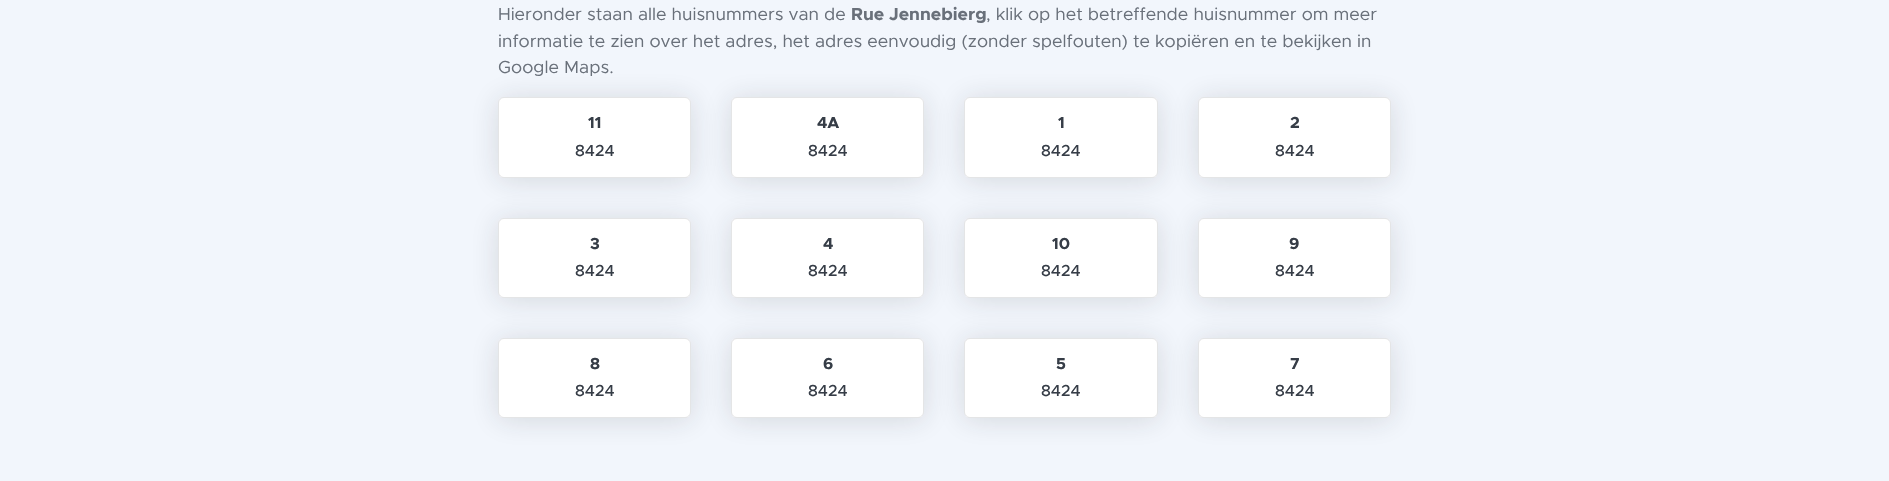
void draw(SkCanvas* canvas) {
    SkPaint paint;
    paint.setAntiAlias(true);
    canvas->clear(0xFFF2F6FC);
    SkFont font1(fontMgr->matchFamilyStyle("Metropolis", SkFontStyle::Normal()), 17.6f);
    font1.setSubpixel(true);
    paint.setColor(0xFF69707A);
    canvas->drawString("Hieronder staan alle huisnummers van de", 498, 20, font1, paint);
    SkFont font2(fontMgr->matchFamilyStyle("Metropolis", SkFontStyle::Bold()), 17.6f);
    font2.setSubpixel(true);
    canvas->drawString("Rue Jennebierg", 851, 20, font2, paint);
    canvas->drawString(", klik op het betreffende huisnummer om meer", 986, 20, font1, paint);
    canvas->drawString("informatie te zien over het adres, het adres eenvoudig (zonder spelfouten) te kopiëren en te bekijken in", 498, 47, font1, paint);
    canvas->drawString("Google Maps.", 498, 73, font1, paint);
    paint.setColor(0x26212832);
    paint.setMaskFilter(SkMaskFilter::MakeBlur(kNormal_SkBlurStyle, 14));
    canvas->drawRoundRect(SkRect::MakeXYWH(498, 99, 193, 81), 6, 6, paint);
    paint.setMaskFilter(nullptr);
    paint.setColor(0xFFFFFFFF);
    canvas->drawRoundRect(SkRect::MakeXYWH(498, 97, 193, 81), 6, 6, paint);
    paint.setStyle(SkPaint::kStroke_Style);
    paint.setStrokeWidth(1);
    paint.setColor(0x1F212832);
    canvas->drawRoundRect(SkRect::MakeXYWH(498.5f, 97.5f, 192, 80), 5.5f, 5.5f, paint);
    SkFont font3(fontMgr->matchFamilyStyle("Metropolis", SkFontStyle::Bold()), 16);
    font3.setSubpixel(true);
    paint.setStyle(SkPaint::kFill_Style);
    paint.setColor(0xFF363D47);
    canvas->drawString("11", 588, 128, font3, paint);
    SkFont font4(fontMgr->matchFamilyStyle("Metropolis", SkFontStyle(500, SkFontStyle::kNormal_Width, SkFontStyle::kUpright_Slant)), 16);
    font4.setSubpixel(true);
    canvas->drawString("8424", 575, 156, font4, paint);
    paint.setColor(0x26212832);
    paint.setMaskFilter(SkMaskFilter::MakeBlur(kNormal_SkBlurStyle, 14));
    canvas->drawRoundRect(SkRect::MakeXYWH(731, 99, 193, 81), 6, 6, paint);
    paint.setMaskFilter(nullptr);
    paint.setColor(0xFFFFFFFF);
    canvas->drawRoundRect(SkRect::MakeXYWH(731, 97, 193, 81), 6, 6, paint);
    paint.setStyle(SkPaint::kStroke_Style);
    paint.setColor(0x1F212832);
    canvas->drawRoundRect(SkRect::MakeXYWH(731.5f, 97.5f, 192, 80), 5.5f, 5.5f, paint);
    paint.setStyle(SkPaint::kFill_Style);
    paint.setColor(0xFF363D47);
    canvas->drawString("4A", 817, 128, font3, paint);
    canvas->drawString("8424", 808, 156, font4, paint);
    paint.setColor(0x26212832);
    paint.setMaskFilter(SkMaskFilter::MakeBlur(kNormal_SkBlurStyle, 14));
    canvas->drawRoundRect(SkRect::MakeXYWH(964, 99, 194, 81), 6, 6, paint);
    paint.setMaskFilter(nullptr);
    paint.setColor(0xFFFFFFFF);
    canvas->drawRoundRect(SkRect::MakeXYWH(964, 97, 194, 81), 6, 6, paint);
    paint.setStyle(SkPaint::kStroke_Style);
    paint.setColor(0x1F212832);
    canvas->drawRoundRect(SkRect::MakeXYWH(964.5f, 97.5f, 193, 80), 5.5f, 5.5f, paint);
    paint.setStyle(SkPaint::kFill_Style);
    paint.setColor(0xFF363D47);
    canvas->drawString("1", 1058, 128, font3, paint);
    canvas->drawString("8424", 1041, 156, font4, paint);
    paint.setColor(0x26212832);
    paint.setMaskFilter(SkMaskFilter::MakeBlur(kNormal_SkBlurStyle, 14));
    canvas->drawRoundRect(SkRect::MakeXYWH(1198, 99, 193, 81), 6, 6, paint);
    paint.setMaskFilter(nullptr);
    paint.setColor(0xFFFFFFFF);
    canvas->drawRoundRect(SkRect::MakeXYWH(1198, 97, 193, 81), 6, 6, paint);
    paint.setStyle(SkPaint::kStroke_Style);
    paint.setColor(0x1F212832);
    canvas->drawRoundRect(SkRect::MakeXYWH(1198.5f, 97.5f, 192, 80), 5.5f, 5.5f, paint);
    paint.setStyle(SkPaint::kFill_Style);
    paint.setColor(0xFF363D47);
    canvas->drawString("2", 1290, 128, font3, paint);
    canvas->drawString("8424", 1275, 156, font4, paint);
    paint.setColor(0x26212832);
    paint.setMaskFilter(SkMaskFilter::MakeBlur(kNormal_SkBlurStyle, 14));
    canvas->drawRoundRect(SkRect::MakeXYWH(498, 220, 193, 80), 6, 6, paint);
    paint.setMaskFilter(nullptr);
    paint.setColor(0xFFFFFFFF);
    canvas->drawRoundRect(SkRect::MakeXYWH(498, 218, 193, 80), 6, 6, paint);
    paint.setStyle(SkPaint::kStroke_Style);
    paint.setColor(0x1F212832);
    canvas->drawRoundRect(SkRect::MakeXYWH(498.5f, 218.5f, 192, 79), 5.5f, 5.5f, paint);
    paint.setStyle(SkPaint::kFill_Style);
    paint.setColor(0xFF363D47);
    canvas->drawString("3", 590, 249, font3, paint);
    canvas->drawString("8424", 575, 276, font4, paint);
    paint.setColor(0x26212832);
    paint.setMaskFilter(SkMaskFilter::MakeBlur(kNormal_SkBlurStyle, 14));
    canvas->drawRoundRect(SkRect::MakeXYWH(731, 220, 193, 80), 6, 6, paint);
    paint.setMaskFilter(nullptr);
    paint.setColor(0xFFFFFFFF);
    canvas->drawRoundRect(SkRect::MakeXYWH(731, 218, 193, 80), 6, 6, paint);
    paint.setStyle(SkPaint::kStroke_Style);
    paint.setColor(0x1F212832);
    canvas->drawRoundRect(SkRect::MakeXYWH(731.5f, 218.5f, 192, 79), 5.5f, 5.5f, paint);
    paint.setStyle(SkPaint::kFill_Style);
    paint.setColor(0xFF363D47);
    canvas->drawString("4", 823, 249, font3, paint);
    canvas->drawString("8424", 808, 276, font4, paint);
    paint.setColor(0x26212832);
    paint.setMaskFilter(SkMaskFilter::MakeBlur(kNormal_SkBlurStyle, 14));
    canvas->drawRoundRect(SkRect::MakeXYWH(964, 220, 194, 80), 6, 6, paint);
    paint.setMaskFilter(nullptr);
    paint.setColor(0xFFFFFFFF);
    canvas->drawRoundRect(SkRect::MakeXYWH(964, 218, 194, 80), 6, 6, paint);
    paint.setStyle(SkPaint::kStroke_Style);
    paint.setColor(0x1F212832);
    canvas->drawRoundRect(SkRect::MakeXYWH(964.5f, 218.5f, 193, 79), 5.5f, 5.5f, paint);
    paint.setStyle(SkPaint::kFill_Style);
    paint.setColor(0xFF363D47);
    canvas->drawString("10", 1052, 249, font3, paint);
    canvas->drawString("8424", 1041, 276, font4, paint);
    paint.setColor(0x26212832);
    paint.setMaskFilter(SkMaskFilter::MakeBlur(kNormal_SkBlurStyle, 14));
    canvas->drawRoundRect(SkRect::MakeXYWH(1198, 220, 193, 80), 6, 6, paint);
    paint.setMaskFilter(nullptr);
    paint.setColor(0xFFFFFFFF);
    canvas->drawRoundRect(SkRect::MakeXYWH(1198, 218, 193, 80), 6, 6, paint);
    paint.setStyle(SkPaint::kStroke_Style);
    paint.setColor(0x1F212832);
    canvas->drawRoundRect(SkRect::MakeXYWH(1198.5f, 218.5f, 192, 79), 5.5f, 5.5f, paint);
    paint.setStyle(SkPaint::kFill_Style);
    paint.setColor(0xFF363D47);
    canvas->drawString("9", 1289, 249, font3, paint);
    canvas->drawString("8424", 1275, 276, font4, paint);
    paint.setColor(0x26212832);
    paint.setMaskFilter(SkMaskFilter::MakeBlur(kNormal_SkBlurStyle, 14));
    canvas->drawRoundRect(SkRect::MakeXYWH(498, 340, 193, 80), 6, 6, paint);
    paint.setMaskFilter(nullptr);
    paint.setColor(0xFFFFFFFF);
    canvas->drawRoundRect(SkRect::MakeXYWH(498, 338, 193, 80), 6, 6, paint);
    paint.setStyle(SkPaint::kStroke_Style);
    paint.setColor(0x1F212832);
    canvas->drawRoundRect(SkRect::MakeXYWH(498.5f, 338.5f, 192, 79), 5.5f, 5.5f, paint);
    paint.setStyle(SkPaint::kFill_Style);
    paint.setColor(0xFF363D47);
    canvas->drawString("8", 590, 369, font3, paint);
    canvas->drawString("8424", 575, 396, font4, paint);
    paint.setColor(0x26212832);
    paint.setMaskFilter(SkMaskFilter::MakeBlur(kNormal_SkBlurStyle, 14));
    canvas->drawRoundRect(SkRect::MakeXYWH(731, 340, 193, 80), 6, 6, paint);
    paint.setMaskFilter(nullptr);
    paint.setColor(0xFFFFFFFF);
    canvas->drawRoundRect(SkRect::MakeXYWH(731, 338, 193, 80), 6, 6, paint);
    paint.setStyle(SkPaint::kStroke_Style);
    paint.setColor(0x1F212832);
    canvas->drawRoundRect(SkRect::MakeXYWH(731.5f, 338.5f, 192, 79), 5.5f, 5.5f, paint);
    paint.setStyle(SkPaint::kFill_Style);
    paint.setColor(0xFF363D47);
    canvas->drawString("6", 823, 369, font3, paint);
    canvas->drawString("8424", 808, 396, font4, paint);
    paint.setColor(0x26212832);
    paint.setMaskFilter(SkMaskFilter::MakeBlur(kNormal_SkBlurStyle, 14));
    canvas->drawRoundRect(SkRect::MakeXYWH(964, 340, 194, 80), 6, 6, paint);
    paint.setMaskFilter(nullptr);
    paint.setColor(0xFFFFFFFF);
    canvas->drawRoundRect(SkRect::MakeXYWH(964, 338, 194, 80), 6, 6, paint);
    paint.setStyle(SkPaint::kStroke_Style);
    paint.setColor(0x1F212832);
    canvas->drawRoundRect(SkRect::MakeXYWH(964.5f, 338.5f, 193, 79), 5.5f, 5.5f, paint);
    paint.setStyle(SkPaint::kFill_Style);
    paint.setColor(0xFF363D47);
    canvas->drawString("5", 1056, 369, font3, paint);
    canvas->drawString("8424", 1041, 396, font4, paint);
    paint.setColor(0x26212832);
    paint.setMaskFilter(SkMaskFilter::MakeBlur(kNormal_SkBlurStyle, 14));
    canvas->drawRoundRect(SkRect::MakeXYWH(1198, 340, 193, 80), 6, 6, paint);
    paint.setMaskFilter(nullptr);
    paint.setColor(0xFFFFFFFF);
    canvas->drawRoundRect(SkRect::MakeXYWH(1198, 338, 193, 80), 6, 6, paint);
    paint.setStyle(SkPaint::kStroke_Style);
    paint.setColor(0x1F212832);
    canvas->drawRoundRect(SkRect::MakeXYWH(1198.5f, 338.5f, 192, 79), 5.5f, 5.5f, paint);
    paint.setStyle(SkPaint::kFill_Style);
    paint.setColor(0xFF363D47);
    canvas->drawString("7", 1290, 369, font3, paint);
    canvas->drawString("8424", 1275, 396, font4, paint);
}
